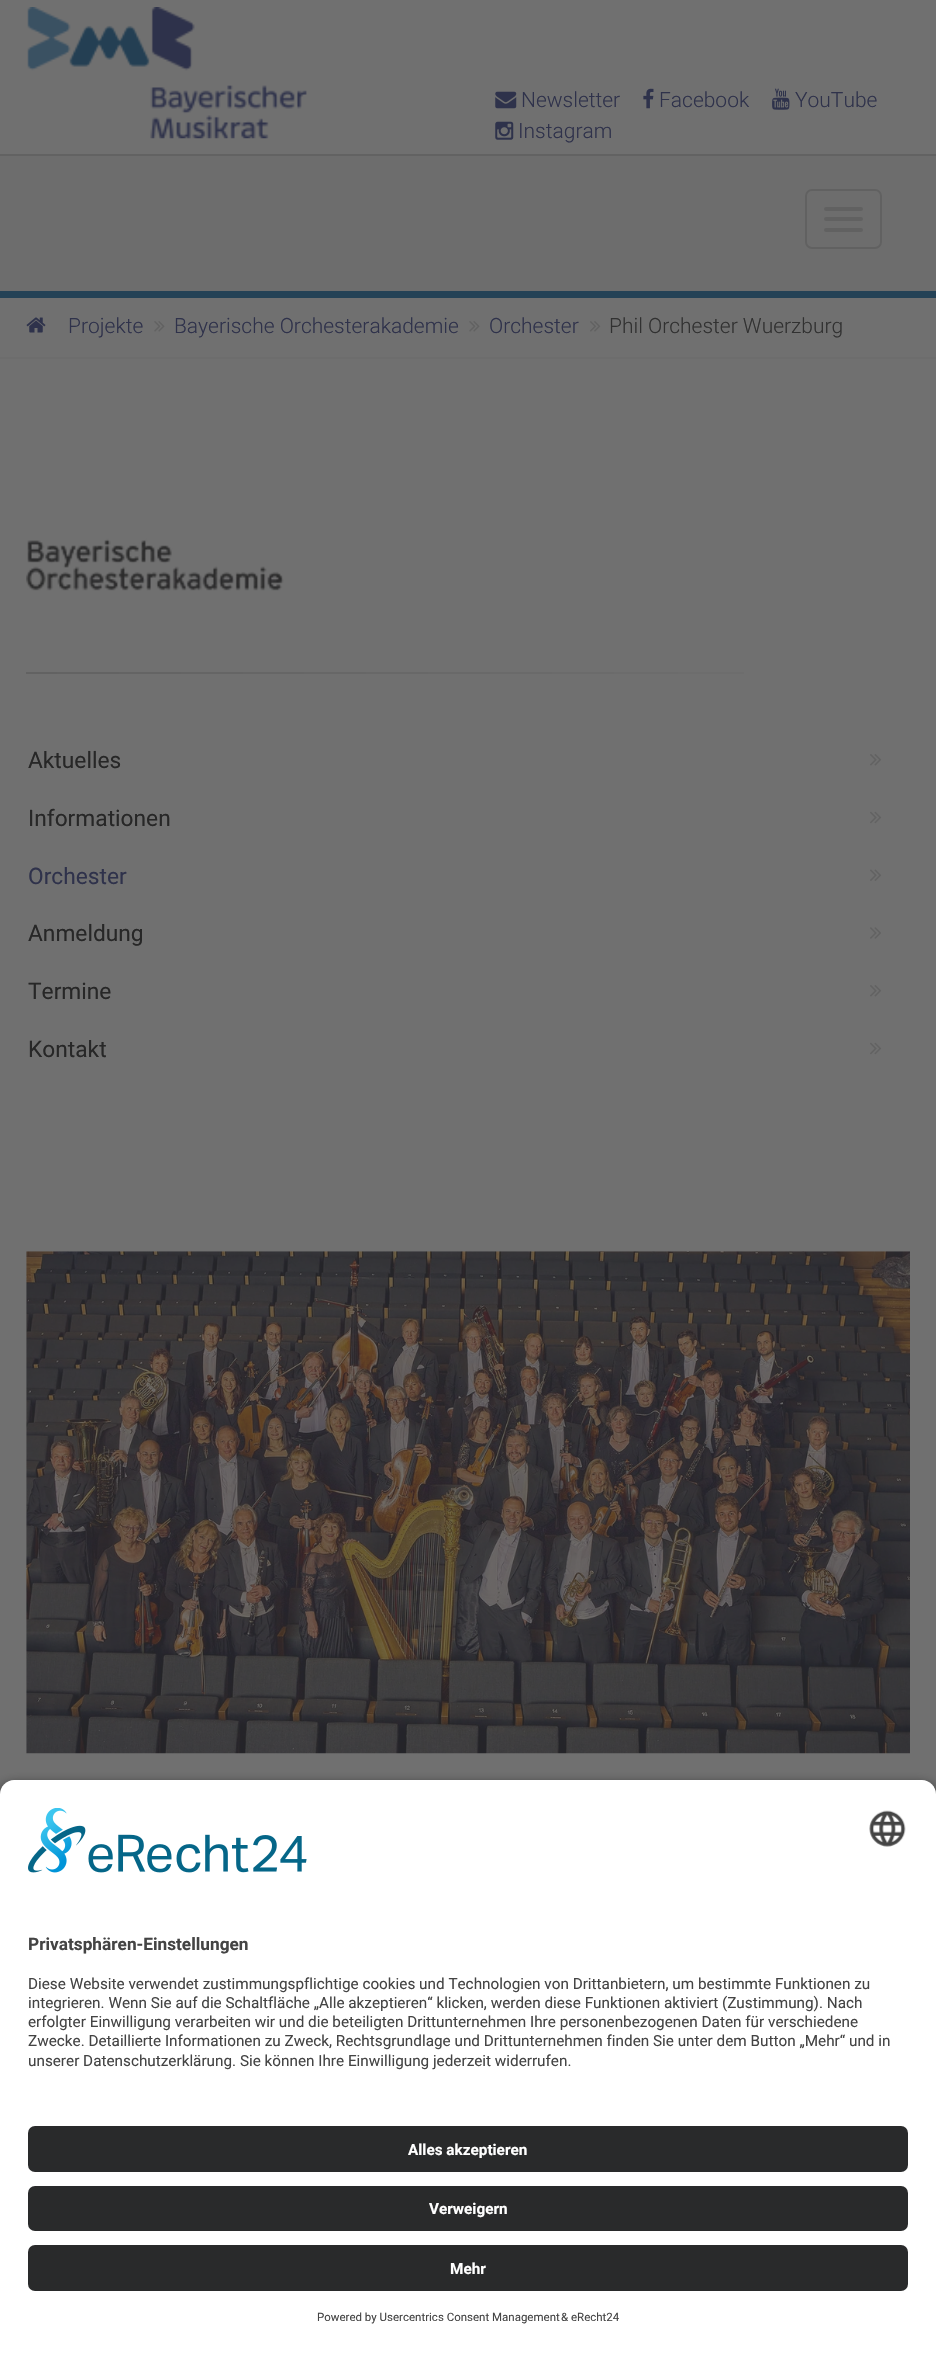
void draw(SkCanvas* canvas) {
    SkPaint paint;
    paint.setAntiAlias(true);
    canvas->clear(0xFF707070);
    paint.setColor(0xFF626262);
    canvas->drawRect(SkRect::MakeXYWH(0, 154, 936, 2), paint);
    canvas->drawImageRect(SkImages::DeferredFromEncodedData(SkData::MakeFromFileName("img1.png")), SkRect::MakeXYWH(27, 7, 280, 132), SkSamplingOptions());
    canvas->drawImageRect(SkImages::DeferredFromEncodedData(SkData::MakeFromFileName("img2.png")), SkRect::MakeXYWH(495, 91, 22, 18), SkSamplingOptions());
    SkFont font1(fontMgr->matchFamilyStyle("Roboto", SkFontStyle(300, SkFontStyle::kNormal_Width, SkFontStyle::kUpright_Slant)), 21);
    font1.setSubpixel(true);
    paint.setColor(0xFF2F324B);
    canvas->drawString("Newsletter", 521, 107, font1, paint);
    canvas->drawImageRect(SkImages::DeferredFromEncodedData(SkData::MakeFromFileName("img3.png")), SkRect::MakeXYWH(643, 88, 11, 21), SkSamplingOptions());
    canvas->drawString("Facebook", 659, 107, font1, paint);
    canvas->drawImageRect(SkImages::DeferredFromEncodedData(SkData::MakeFromFileName("img4.png")), SkRect::MakeXYWH(772, 88, 18, 22), SkSamplingOptions());
    canvas->drawString("YouTube", 795, 107, font1, paint);
    canvas->drawImageRect(SkImages::DeferredFromEncodedData(SkData::MakeFromFileName("img5.png")), SkRect::MakeXYWH(495, 121, 19, 19), SkSamplingOptions());
    canvas->drawString("Instagram", 518, 138, font1, paint);
    paint.setColor(0xFF6D6D6D);
    canvas->drawRect(SkRect::MakeXYWH(0, 156, 936, 135), paint);
    paint.setColor(0xFF244256);
    canvas->drawRect(SkRect::MakeXYWH(0, 291, 936, 7), paint);
    paint.setStyle(SkPaint::kStroke_Style);
    paint.setStrokeWidth(2);
    paint.setColor(0xFF616161);
    canvas->drawRoundRect(SkRect::MakeXYWH(806, 190, 75, 58), 6, 6, paint);
    paint.setStyle(SkPaint::kFill_Style);
    canvas->drawRoundRect(SkRect::MakeXYWH(824, 207, 39, 4), 2, 2, paint);
    canvas->drawRoundRect(SkRect::MakeXYWH(824, 217, 39, 4), 2, 2, paint);
    canvas->drawRoundRect(SkRect::MakeXYWH(824, 228, 39, 4), 2, 2, paint);
    paint.setColor(0xFF6D6D6D);
    canvas->drawRect(SkRect::MakeXYWH(0, 357, 936, 2), paint);
    canvas->drawImageRect(SkImages::DeferredFromEncodedData(SkData::MakeFromFileName("img6.png")), SkRect::MakeXYWH(26, 317, 20, 16), SkSamplingOptions());
    paint.setColor(0xFF2F324B);
    canvas->drawString("Projekte", 68, 333, font1, paint);
    canvas->drawImageRect(SkImages::DeferredFromEncodedData(SkData::MakeFromFileName("img7.png")), SkRect::MakeXYWH(154, 321, 11, 11), SkSamplingOptions());
    canvas->drawString("Bayerische Orchesterakademie", 174, 333, font1, paint);
    canvas->drawImageRect(SkImages::DeferredFromEncodedData(SkData::MakeFromFileName("img7.png")), SkRect::MakeXYWH(469, 321, 11, 11), SkSamplingOptions());
    canvas->drawString("Orchester", 489, 333, font1, paint);
    canvas->drawImageRect(SkImages::DeferredFromEncodedData(SkData::MakeFromFileName("img8.png")), SkRect::MakeXYWH(590, 321, 11, 11), SkSamplingOptions());
    paint.setColor(0xFF313131);
    canvas->drawString("Phil Orchester Wuerzburg", 609, 333, font1, paint);
    canvas->drawImageRect(SkImages::DeferredFromEncodedData(SkData::MakeFromFileName("img9.png")), SkRect::MakeXYWH(26, 538, 258, 53), SkSamplingOptions());
    {
        const SkColor colors[] = {0xFF626262, 0xFF676767, 0xFF6C6C6C, 0xFF707070};
        const float stops[] = {0, 0.35f, 0.7f, 1};
        const SkPoint ends[] = {{26, 673}, {910, 673}};
        paint.setShader(SkGradientShader::MakeLinear(ends, colors, stops, 4, SkTileMode::kClamp));
        paint.setAlpha(255);
    }
    canvas->drawRect(SkRect::MakeXYWH(26, 672, 718, 2), paint);
    SkFont font2(fontMgr->matchFamilyStyle("Roboto", SkFontStyle::Normal()), 22.75f);
    font2.setSubpixel(true);
    paint.setShader(nullptr);
    paint.setColor(0xFF272727);
    canvas->drawString("Aktuelles", 28, 768, font2, paint);
    canvas->drawImageRect(SkImages::DeferredFromEncodedData(SkData::MakeFromFileName("img10.png")), SkRect::MakeXYWH(870, 754, 12, 12), SkSamplingOptions());
    canvas->drawString("Informationen", 28, 826, font2, paint);
    canvas->drawImageRect(SkImages::DeferredFromEncodedData(SkData::MakeFromFileName("img11.png")), SkRect::MakeXYWH(870, 811, 12, 13), SkSamplingOptions());
    paint.setColor(0xFF2F324B);
    canvas->drawString("Orchester", 28, 884, font2, paint);
    canvas->drawImageRect(SkImages::DeferredFromEncodedData(SkData::MakeFromFileName("img12.png")), SkRect::MakeXYWH(870, 869, 12, 12), SkSamplingOptions());
    paint.setColor(0xFF272727);
    canvas->drawString("Anmeldung", 28, 941, font2, paint);
    canvas->drawImageRect(SkImages::DeferredFromEncodedData(SkData::MakeFromFileName("img13.png")), SkRect::MakeXYWH(870, 927, 11, 12), SkSamplingOptions());
    canvas->drawString("Termine", 28, 999, font2, paint);
    canvas->drawImageRect(SkImages::DeferredFromEncodedData(SkData::MakeFromFileName("img10.png")), SkRect::MakeXYWH(870, 985, 12, 12), SkSamplingOptions());
    canvas->drawString("Kontakt", 28, 1057, font2, paint);
    canvas->drawImageRect(SkImages::DeferredFromEncodedData(SkData::MakeFromFileName("img11.png")), SkRect::MakeXYWH(870, 1042, 12, 13), SkSamplingOptions());
    canvas->drawImageRect(SkImages::DeferredFromEncodedData(SkData::MakeFromFileName("img14.png")), SkRect::MakeXYWH(26, 1251, 884, 503), SkSamplingOptions());
    paint.setColor(0xCC000000);
    paint.setMaskFilter(SkMaskFilter::MakeBlur(kNormal_SkBlurStyle, 6));
    canvas->drawRoundRect(SkRect::MakeXYWH(0, 1785, 936, 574), 14, 14, paint);
    paint.setMaskFilter(nullptr);
    paint.setColor(0xFFFFFFFF);
    canvas->drawPath(SkPathBuilder().moveTo(14, 1780).lineTo(922, 1780).cubicTo(929.5f, 1780, 936, 1786.5f, 936, 1794).lineTo(936, 2105).lineTo(0, 2105).lineTo(0, 1794).cubicTo(0, 1786.5f, 6.5f, 1780, 14, 1780).close().detach(), paint);
    canvas->drawImageRect(SkImages::DeferredFromEncodedData(SkData::MakeFromFileName("img15.png")), SkRect::MakeXYWH(28, 1808, 279, 65), SkSamplingOptions());
    canvas->drawImageRect(SkImages::DeferredFromEncodedData(SkData::MakeFromFileName("img16.png")), SkRect::MakeXYWH(869, 1810, 37, 37), SkSamplingOptions());
    SkFont font3(fontMgr->matchFamilyStyle("Roboto", SkFontStyle::Bold()), 17.25f);
    font3.setSubpixel(true);
    paint.setColor(0xFF444444);
    canvas->drawString("Privatsphären-Einstellungen", 28, 1950, font3, paint);
    SkFont font4(fontMgr->matchFamilyStyle("Roboto", SkFontStyle::Normal()), 15.3f);
    font4.setSubpixel(true);
    canvas->drawString("Diese Website verwendet zustimmungspflichtige cookies und Technologien von Drittanbietern, um bestimmte Funktionen zu", 28, 1989, font4, paint);
    canvas->drawString("integrieren. Wenn Sie auf die Schaltfläche „Alle akzeptieren“ klicken, werden diese Funktionen aktiviert (Zustimmung). Nach", 28, 2008, font4, paint);
    canvas->drawString("erfolgter Einwilligung verarbeiten wir und die beteiligten Drittunternehmen Ihre personenbezogenen Daten für verschiedene", 28, 2027, font4, paint);
    canvas->drawString("Zwecke. Detaillierte Informationen zu Zweck, Rechtsgrundlage und Drittunternehmen finden Sie unter dem Button „Mehr“ und in", 28, 2046, font4, paint);
    canvas->drawString("unserer Datenschutzerklärung. Sie können Ihre Einwilligung jederzeit widerrufen.", 28, 2066, font4, paint);
    paint.setColor(0xFFFFFFFF);
    canvas->drawRect(SkRect::MakeXYWH(0, 2105, 936, 248), paint);
    paint.setColor(0xFF292A2B);
    canvas->drawRoundRect(SkRect::MakeXYWH(28, 2126, 880, 46), 7, 7, paint);
    SkFont font5(fontMgr->matchFamilyStyle("Roboto", SkFontStyle::Bold()), 15.3f);
    font5.setSubpixel(true);
    paint.setColor(0xFFFFFFFF);
    canvas->drawString("Alles akzeptieren", 408, 2155, font5, paint);
    paint.setColor(0xFF292A2B);
    canvas->drawRoundRect(SkRect::MakeXYWH(28, 2186, 880, 45), 7, 7, paint);
    paint.setColor(0xFFFFFFFF);
    canvas->drawString("Verweigern", 429, 2214, font5, paint);
    paint.setColor(0xFF292A2B);
    canvas->drawRoundRect(SkRect::MakeXYWH(28, 2245, 880, 46), 7, 7, paint);
    paint.setColor(0xFFFFFFFF);
    canvas->drawString("Mehr", 450, 2274, font5, paint);
    SkFont font6(fontMgr->matchFamilyStyle("Roboto", SkFontStyle::Normal()), 11.5f);
    font6.setSubpixel(true);
    paint.setColor(0xFF444444);
    canvas->drawString("Powered by Usercentrics Consent Management", 317, 2321, font6, paint);
    canvas->drawString("& eRecht24", 561, 2321, font6, paint);
}
